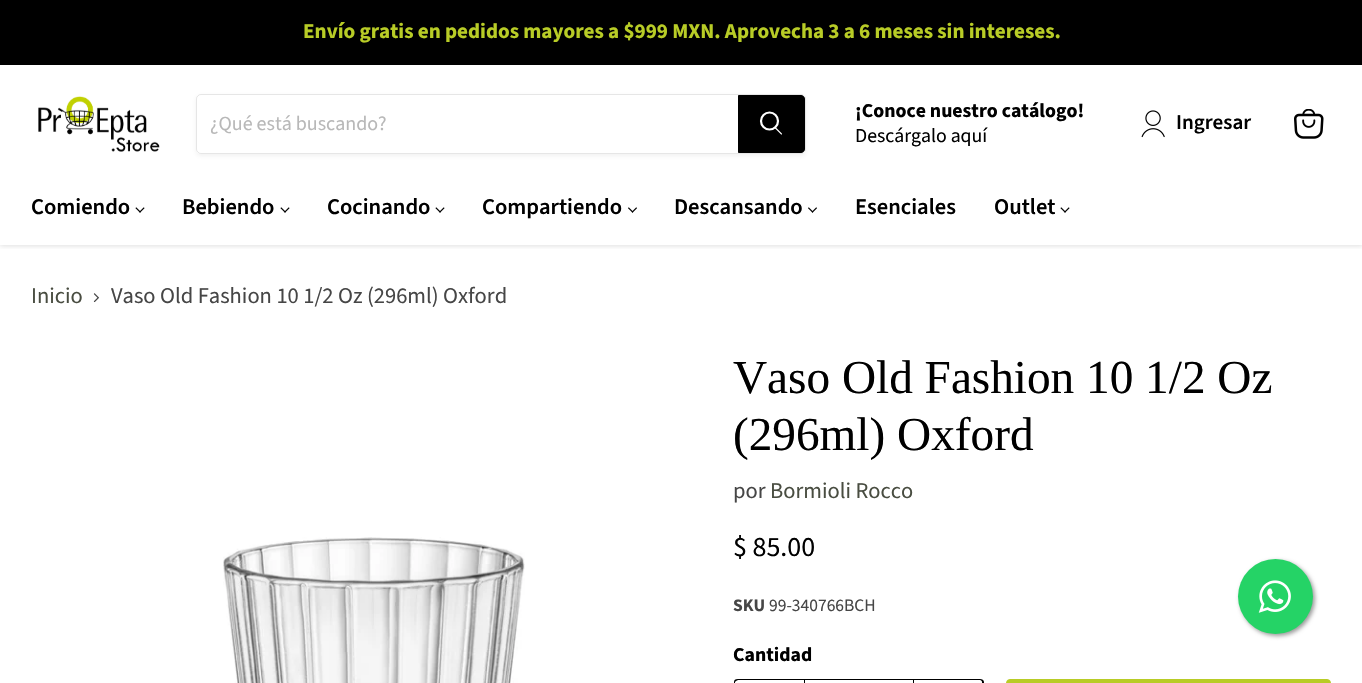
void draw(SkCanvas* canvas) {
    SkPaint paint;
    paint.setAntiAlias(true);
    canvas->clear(0xFFFFFFFF);
    canvas->save();
    canvas->clipRect(SkRect::MakeXYWH(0, 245, 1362, 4));
    paint.setColor(0x40808080);
    paint.setMaskFilter(SkMaskFilter::MakeBlur(kNormal_SkBlurStyle, 2.5f));
    canvas->drawRect(SkRect::MakeXYWH(0, 66, 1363, 180), paint);
    paint.setMaskFilter(nullptr);
    canvas->restore();
    paint.setColor(0xFF000000);
    canvas->drawRect(SkRect::MakeXYWH(0, 0, 1362, 65), paint);
    SkFont font1(fontMgr->matchFamilyStyle("Source Sans Pro", SkFontStyle::Bold()), 21.1f);
    font1.setSubpixel(true);
    paint.setColor(0xFFB8CC26);
    canvas->drawString("Envío gratis en pedidos mayores a $999 MXN. Aprovecha 3 a 6 meses sin intereses.", 303, 38, font1, paint);
    canvas->drawImageRect(SkImages::DeferredFromEncodedData(SkData::MakeFromFileName("img1.png")), SkRect::MakeXYWH(38, 96, 122, 56), SkSamplingOptions());
    canvas->save();
    canvas->clipPath(SkPathBuilder(SkPathFillType::kEvenOdd).moveTo(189, 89).lineTo(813, 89).lineTo(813, 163).lineTo(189, 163).close().moveTo(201, 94).lineTo(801, 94).cubicTo(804, 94, 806, 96, 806, 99).lineTo(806, 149).cubicTo(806, 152, 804, 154, 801, 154).lineTo(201, 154).cubicTo(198, 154, 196, 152, 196, 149).lineTo(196, 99).cubicTo(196, 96, 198, 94, 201, 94).close().detach(), true);
    paint.setColor(0x1C808080);
    paint.setMaskFilter(SkMaskFilter::MakeBlur(kNormal_SkBlurStyle, 2));
    canvas->drawRoundRect(SkRect::MakeXYWH(196, 96, 610, 60), 5, 5, paint);
    paint.setMaskFilter(nullptr);
    canvas->restore();
    paint.setStyle(SkPaint::kStroke_Style);
    paint.setStrokeWidth(1);
    paint.setColor(0x33808080);
    canvas->drawRoundRect(SkRect::MakeXYWH(196.5f, 94.5f, 609, 59), 4.5f, 4.5f, paint);
    SkFont font2(fontMgr->matchFamilyStyle("Source Sans Pro", SkFontStyle::Normal()), 20);
    font2.setSubpixel(true);
    paint.setStyle(SkPaint::kFill_Style);
    paint.setColor(0xFFB8B8B8);
    canvas->drawString("¿Qué está buscando?", 210, 130, font2, paint);
    paint.setColor(0xFF000000);
    canvas->drawPath(SkPathBuilder().moveTo(738.5f, 95.5f).lineTo(801, 95.5f).cubicTo(803, 95.5f, 804.5f, 97, 804.5f, 99).lineTo(804.5f, 149).cubicTo(804.5f, 151, 803, 152.5f, 801, 152.5f).lineTo(738.5f, 152.5f).close().detach(), paint);
    paint.setStyle(SkPaint::kStroke_Style);
    canvas->drawPath(SkPathBuilder().moveTo(738.5f, 95.5f).lineTo(801, 95.5f).cubicTo(803, 95.5f, 804.5f, 97, 804.5f, 99).lineTo(804.5f, 149).cubicTo(804.5f, 151, 803, 152.5f, 801, 152.5f).lineTo(738.5f, 152.5f).close().detach(), paint);
    paint.setStrokeWidth(1.1f);
    paint.setStrokeCap(SkPaint::kRound_Cap);
    paint.setColor(0xFFFFFFFF);
    canvas->drawPath(SkPathBuilder().moveTo(781.5f, 134).lineTo(775.5f, 128).detach(), paint);
    paint.setStrokeWidth(2.2f);
    paint.setStrokeCap(SkPaint::kButt_Cap);
    canvas->drawCircle(769.5f, 121, 8.5f, paint);
    SkFont font3(fontMgr->matchFamilyStyle("Source Sans Pro", SkFontStyle::Bold()), 19.75f);
    font3.setSubpixel(true);
    paint.setStyle(SkPaint::kFill_Style);
    paint.setColor(0xFF000000);
    canvas->drawString("¡Conoce nuestro catálogo!", 855, 117, font3, paint);
    SkFont font4(fontMgr->matchFamilyStyle("Source Sans Pro", SkFontStyle::Normal()), 19.75f);
    font4.setSubpixel(true);
    canvas->drawString("Descárgalo aquí", 855, 142, font4, paint);
    canvas->drawImageRect(SkImages::DeferredFromEncodedData(SkData::MakeFromFileName("img2.png")), SkRect::MakeXYWH(1141, 110, 24, 28), SkSamplingOptions());
    SkFont font5(fontMgr->matchFamilyStyle("Source Sans Pro", SkFontStyle(600, SkFontStyle::kNormal_Width, SkFontStyle::kUpright_Slant)), 21.1f);
    font5.setSubpixel(true);
    canvas->drawString("Ingresar", 1176, 129, font5, paint);
    canvas->drawImageRect(SkImages::DeferredFromEncodedData(SkData::MakeFromFileName("img3.png")), SkRect::MakeXYWH(1294, 109, 30, 30), SkSamplingOptions());
    SkFont font6(fontMgr->matchFamilyStyle("Source Sans Pro", SkFontStyle(600, SkFontStyle::kNormal_Width, SkFontStyle::kUpright_Slant)), 22.5f);
    font6.setSubpixel(true);
    canvas->drawString("Comiendo", 31, 214, font6, paint);
    canvas->drawImageRect(SkImages::DeferredFromEncodedData(SkData::MakeFromFileName("img4.png")), SkRect::MakeXYWH(135, 207, 10, 6), SkSamplingOptions());
    canvas->drawString("Bebiendo", 182, 214, font6, paint);
    canvas->drawImageRect(SkImages::DeferredFromEncodedData(SkData::MakeFromFileName("img4.png")), SkRect::MakeXYWH(280, 207, 10, 6), SkSamplingOptions());
    canvas->drawString("Cocinando", 327, 214, font6, paint);
    canvas->drawImageRect(SkImages::DeferredFromEncodedData(SkData::MakeFromFileName("img4.png")), SkRect::MakeXYWH(435, 207, 10, 6), SkSamplingOptions());
    canvas->drawString("Compartiendo", 482, 214, font6, paint);
    canvas->drawImageRect(SkImages::DeferredFromEncodedData(SkData::MakeFromFileName("img5.png")), SkRect::MakeXYWH(628, 207, 9, 6), SkSamplingOptions());
    canvas->drawString("Descansando", 674, 214, font6, paint);
    canvas->drawImageRect(SkImages::DeferredFromEncodedData(SkData::MakeFromFileName("img5.png")), SkRect::MakeXYWH(808, 207, 9, 6), SkSamplingOptions());
    canvas->drawString("Esenciales", 855, 214, font6, paint);
    canvas->drawString("Outlet", 994, 214, font6, paint);
    canvas->drawImageRect(SkImages::DeferredFromEncodedData(SkData::MakeFromFileName("img4.png")), SkRect::MakeXYWH(1060, 207, 10, 6), SkSamplingOptions());
    SkFont font7(fontMgr->matchFamilyStyle("Source Sans Pro", SkFontStyle::Normal()), 22.5f);
    font7.setSubpixel(true);
    paint.setColor(0xFF494D41);
    canvas->drawString("Inicio", 31, 303, font7, paint);
    canvas->drawImageRect(SkImages::DeferredFromEncodedData(SkData::MakeFromFileName("img6.png")), SkRect::MakeXYWH(93, 293, 7, 10), SkSamplingOptions());
    paint.setColor(0xFF464646);
    canvas->drawString("Vaso Old Fashion 10 1/2 Oz (296ml) Oxford", 111, 303, font7, paint);
    canvas->drawImageRect(SkImages::DeferredFromEncodedData(SkData::MakeFromFileName("img7.png")), SkRect::MakeXYWH(223, 537, 302, 146), SkSamplingOptions());
    SkFont font8(fontMgr->matchFamilyStyle("Liberation Serif", SkFontStyle::Normal()), 47.25f);
    font8.setSubpixel(true);
    paint.setColor(0xFF000000);
    canvas->drawString("Vaso Old Fashion 10 1/2 Oz", 733, 393, font8, paint);
    canvas->drawString("(296ml) Oxford", 733, 450, font8, paint);
    paint.setColor(0xFF464646);
    canvas->drawString("por", 733, 498, font7, paint);
    paint.setColor(0xFF494D41);
    canvas->drawString("Bormioli Rocco", 770, 498, font7, paint);
    SkFont font9(fontMgr->matchFamilyStyle("Source Sans Pro", SkFontStyle::Normal()), 28);
    font9.setSubpixel(true);
    paint.setColor(0xFF000000);
    canvas->drawString("$ 85.00", 733, 556, font9, paint);
    SkFont font10(fontMgr->matchFamilyStyle("Source Sans Pro", SkFontStyle::Bold()), 17.5f);
    font10.setSubpixel(true);
    paint.setColor(0xFF464646);
    canvas->drawString("SKU", 733, 611, font10, paint);
    SkFont font11(fontMgr->matchFamilyStyle("Source Sans Pro", SkFontStyle::Normal()), 17.5f);
    font11.setSubpixel(true);
    canvas->drawString("99-340766BCH", 769, 611, font11, paint);
    paint.setColor(0xFF000000);
    canvas->drawString("Cantidad", 733, 661, font3, paint);
    canvas->drawPath(SkPathBuilder(SkPathFillType::kEvenOdd).moveTo(738, 679).lineTo(804, 679).lineTo(804, 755).lineTo(738, 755).cubicTo(735, 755, 734, 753, 734, 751).lineTo(734, 682).cubicTo(734, 680, 735, 679, 738, 679).close().moveTo(738, 680).lineTo(804, 680).lineTo(804, 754).cubicTo(797, 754, 738, 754, 736, 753).lineTo(735, 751).lineTo(735, 682).lineTo(736, 681).close().detach(), paint);
    paint.setStyle(SkPaint::kStroke_Style);
    paint.setStrokeWidth(1);
    canvas->drawRect(SkRect::MakeXYWH(804.5f, 679.5f, 109, 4), paint);
    paint.setStyle(SkPaint::kFill_Style);
    canvas->drawPath(SkPathBuilder(SkPathFillType::kEvenOdd).moveTo(914, 679).lineTo(980, 679).cubicTo(982, 679, 984, 680, 984, 682).lineTo(984, 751).cubicTo(984, 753, 982, 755, 980, 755).lineTo(914, 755).close().moveTo(914, 680).lineTo(980, 680).cubicTo(981, 680, 982, 681, 982, 682).lineTo(982, 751).cubicTo(982, 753, 981, 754, 980, 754).lineTo(914, 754).close().detach(), paint);
    paint.setColor(0xFFB8CC26);
    canvas->drawRoundRect(SkRect::MakeXYWH(1006.5f, 679.5f, 324, 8), 3.5f, 3.5f, paint);
    paint.setStyle(SkPaint::kStroke_Style);
    canvas->drawRoundRect(SkRect::MakeXYWH(1006.5f, 679.5f, 324, 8), 3.5f, 3.5f, paint);
    paint.setStyle(SkPaint::kFill_Style);
    paint.setColor(0xFF999999);
    paint.setMaskFilter(SkMaskFilter::MakeBlur(kNormal_SkBlurStyle, 2));
    canvas->drawRoundRect(SkRect::MakeXYWH(1240, 561, 75, 75), 37.5f, 37.5f, paint);
    paint.setMaskFilter(nullptr);
    paint.setColor(0xFF25D366);
    canvas->drawCircle(1275.5f, 596.5f, 37.5f, paint);
    canvas->drawImageRect(SkImages::DeferredFromEncodedData(SkData::MakeFromFileName("img8.png")), SkRect::MakeXYWH(1258, 580, 33, 33), SkSamplingOptions());
}
